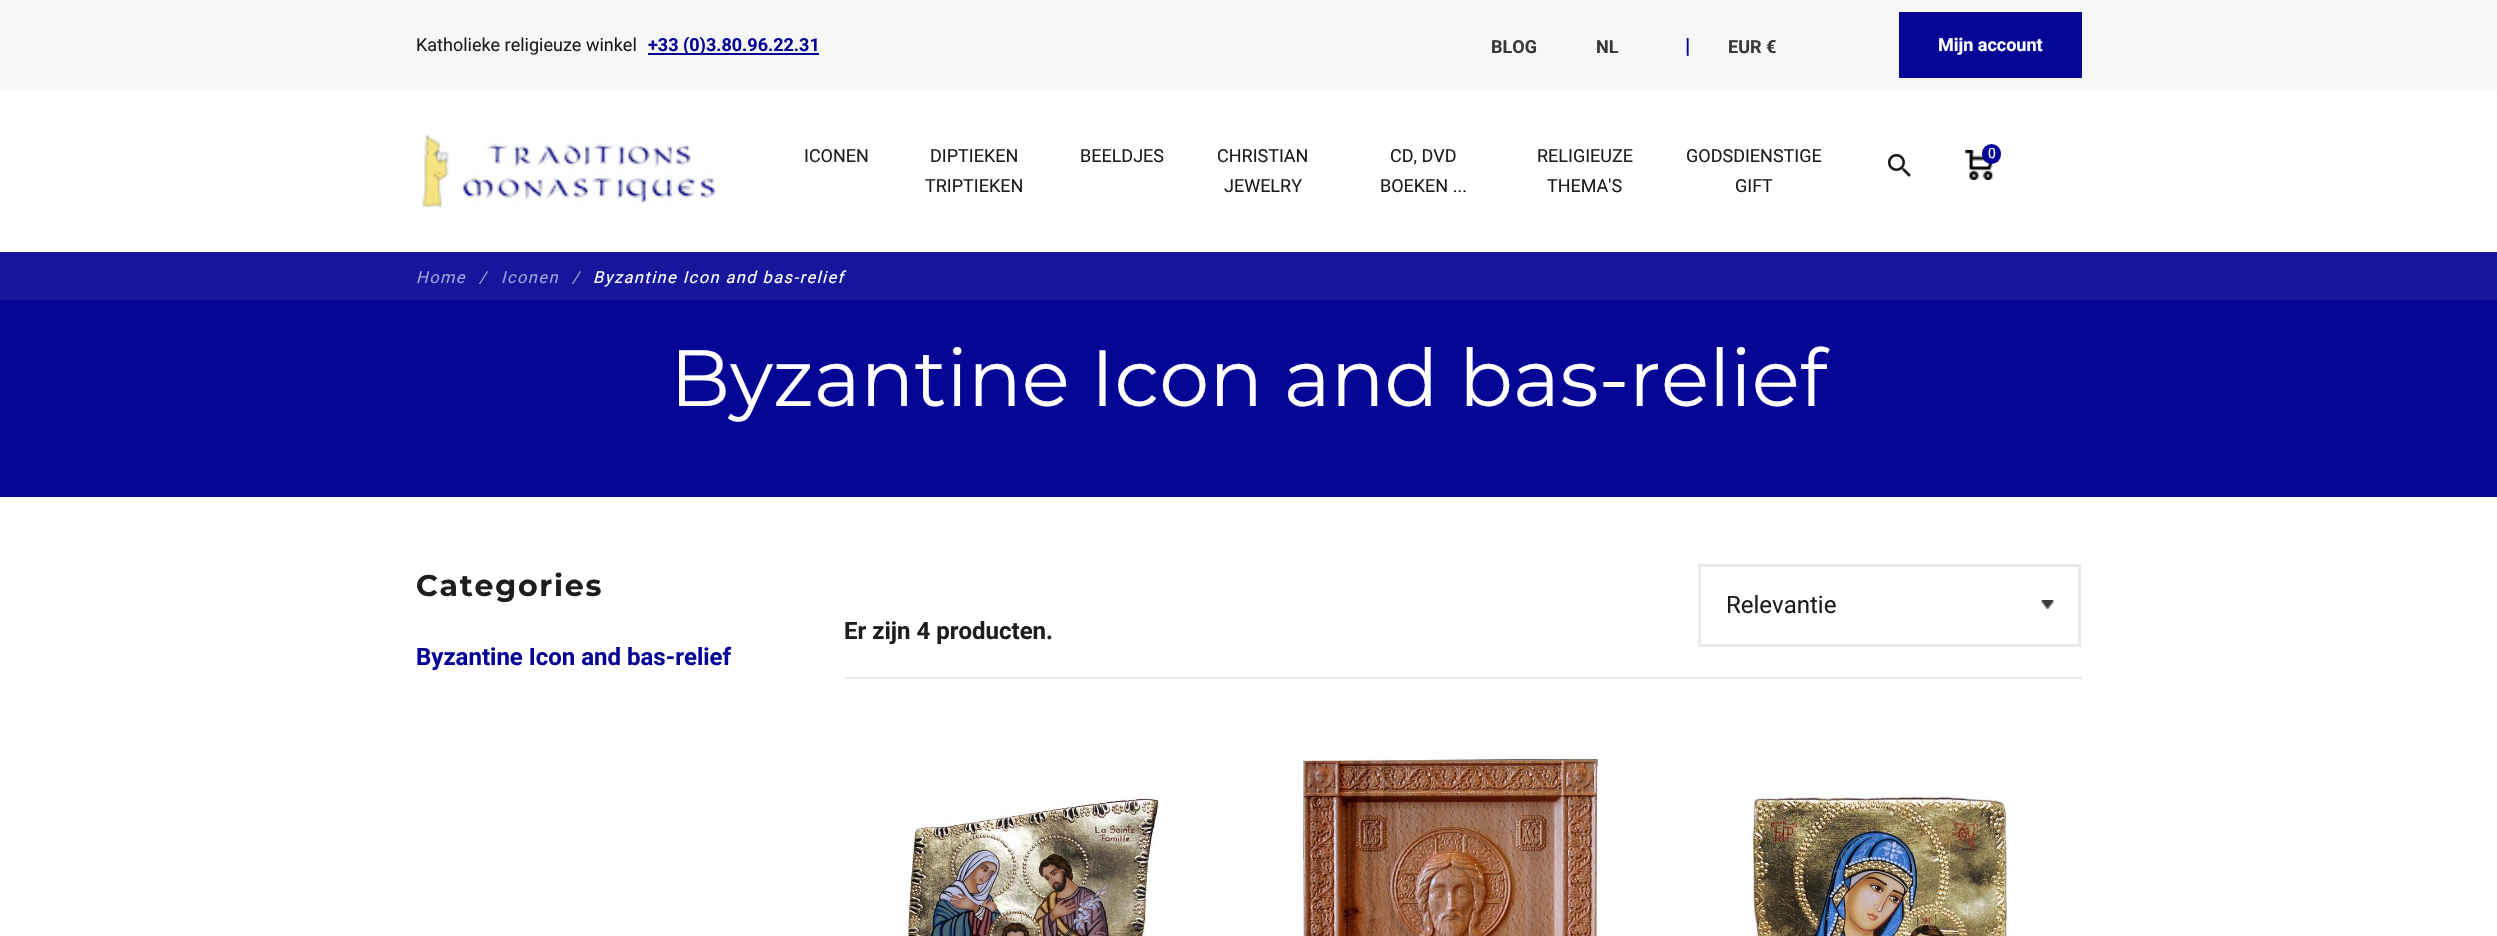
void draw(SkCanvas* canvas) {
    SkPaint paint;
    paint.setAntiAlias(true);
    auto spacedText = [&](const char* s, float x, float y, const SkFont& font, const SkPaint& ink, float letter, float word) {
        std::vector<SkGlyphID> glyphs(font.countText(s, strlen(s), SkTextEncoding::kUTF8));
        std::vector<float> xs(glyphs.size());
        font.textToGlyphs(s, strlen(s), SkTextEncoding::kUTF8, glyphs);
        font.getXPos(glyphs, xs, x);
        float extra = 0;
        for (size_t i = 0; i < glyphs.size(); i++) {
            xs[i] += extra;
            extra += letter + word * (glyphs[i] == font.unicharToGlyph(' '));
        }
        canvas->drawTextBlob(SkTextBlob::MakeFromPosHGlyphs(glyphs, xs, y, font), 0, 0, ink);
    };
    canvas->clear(0xFFFFFFFF);
    paint.setColor(0xFFF7F7F7);
    canvas->drawRect(SkRect::MakeXYWH(0, 0, 2497, 90), paint);
    SkFont font1(fontMgr->matchFamilyStyle("Roboto", SkFontStyle::Normal()), 18);
    font1.setSubpixel(true);
    paint.setColor(0xFF1D1D1D);
    canvas->drawString("Katholieke religieuze winkel", 416, 51, font1, paint);
    paint.setColor(0xFF050596);
    canvas->drawRect(SkRect::MakeXYWH(648, 53, 171, 2), paint);
    SkFont font2(fontMgr->matchFamilyStyle("Roboto", SkFontStyle::Bold()), 18);
    font2.setSubpixel(true);
    canvas->drawString("+33 (0)3.80.96.22.31", 648, 51, font2, paint);
    paint.setColor(0xFF393939);
    canvas->drawString("BLOG", 1491, 53, font2, paint);
    canvas->drawString("NL", 1596, 53, font2, paint);
    SkFont font3(fontMgr->matchFamilyStyle("Roboto", SkFontStyle::Bold()), 21);
    font3.setSubpixel(true);
    paint.setColor(0xFF050596);
    canvas->drawString("|", 1685, 53, font3, paint);
    paint.setColor(0xFF393939);
    canvas->drawString("EUR €", 1728, 53, font2, paint);
    paint.setColor(0xFF050596);
    canvas->drawRect(SkRect::MakeXYWH(1899, 12, 183, 66), paint);
    paint.setColor(0xFFFFFFFF);
    canvas->drawString("Mijn account", 1938, 51, font2, paint);
    canvas->drawImageRect(SkImages::DeferredFromEncodedData(SkData::MakeFromFileName("img1.png")), SkRect::MakeXYWH(422, 134, 294, 74), SkSamplingOptions());
    paint.setColor(0xFF1D1D1D);
    canvas->drawString("ICONEN", 804, 162, font1, paint);
    canvas->drawString("DIPTIEKEN", 930, 162, font1, paint);
    canvas->drawString("TRIPTIEKEN", 925, 192, font1, paint);
    canvas->drawString("BEELDJES", 1080, 162, font1, paint);
    canvas->drawString("CHRISTIAN", 1217, 162, font1, paint);
    canvas->drawString("JEWELRY", 1224, 192, font1, paint);
    canvas->drawString("CD, DVD", 1390, 162, font1, paint);
    canvas->drawString("BOEKEN ...", 1380, 192, font1, paint);
    canvas->drawString("RELIGIEUZE", 1537, 162, font1, paint);
    canvas->drawString("THEMA'S", 1547, 192, font1, paint);
    canvas->drawString("GODSDIENSTIGE", 1686, 162, font1, paint);
    canvas->drawString("GIFT", 1735, 192, font1, paint);
    canvas->drawImageRect(SkImages::DeferredFromEncodedData(SkData::MakeFromFileName("img2.png")), SkRect::MakeXYWH(1887, 153, 24, 24), SkSamplingOptions());
    canvas->drawImageRect(SkImages::DeferredFromEncodedData(SkData::MakeFromFileName("img3.png")), SkRect::MakeXYWH(1965, 150, 29, 30), SkSamplingOptions());
    paint.setColor(0xFF050596);
    canvas->drawRoundRect(SkRect::MakeXYWH(1982, 144, 19, 20), 9.5f, 9.5f, paint);
    SkFont font4(fontMgr->matchFamilyStyle("Roboto", SkFontStyle::Normal()), 14);
    font4.setSubpixel(true);
    paint.setColor(0xFFFFFFFF);
    canvas->drawString("0", 1988, 158, font4, paint);
    paint.setColor(0xFF16169D);
    canvas->drawRect(SkRect::MakeXYWH(0, 252, 2497, 48), paint);
    SkFont font5(fontMgr->matchFamilyStyle("Roboto", SkFontStyle::Italic()), 16.5f);
    font5.setSubpixel(true);
    paint.setColor(0xFFA2A2D8);
    spacedText("Home", 416, 283, font5, paint, 1.4f, 0);
    spacedText("/", 479, 283, font5, paint, 1.4f, 0);
    spacedText("Iconen", 501, 283, font5, paint, 1.4f, 0);
    spacedText("/", 572, 283, font5, paint, 1.4f, 0);
    paint.setColor(0xFFFFFFFF);
    spacedText("Byzantine Icon and bas-relief", 593, 283, font5, paint, 1.4f, 0);
    paint.setColor(0xFF050596);
    canvas->drawRect(SkRect::MakeXYWH(0, 300, 2497, 197), paint);
    SkFont font6(fontMgr->matchFamilyStyle("Montserrat", SkFontStyle::Normal()), 79.5f);
    font6.setSubpixel(true);
    paint.setColor(0xFFFFFFFF);
    canvas->drawString("Byzantine Icon and bas-relief", 670, 406, font6, paint);
    SkFont font7(fontMgr->matchFamilyStyle("Montserrat", SkFontStyle::Bold()), 30);
    font7.setSubpixel(true);
    paint.setColor(0xFF1D1D1D);
    spacedText("Categories", 416, 596, font7, paint, 1.75f, 0);
    SkFont font8(fontMgr->matchFamilyStyle("Roboto", SkFontStyle::Bold()), 24);
    font8.setSubpixel(true);
    paint.setColor(0xFF050596);
    canvas->drawString("Byzantine Icon and bas-relief", 416, 665, font8, paint);
    paint.setColor(0xFFEBEBEB);
    canvas->drawRect(SkRect::MakeXYWH(845, 677, 1237, 2), paint);
    canvas->drawImageRect(SkImages::DeferredFromEncodedData(SkData::MakeFromFileName("img4.png")), SkRect::MakeXYWH(2041, 600, 13, 9), SkSamplingOptions());
    paint.setStyle(SkPaint::kStroke_Style);
    paint.setStrokeWidth(3);
    paint.setColor(0xFFEAEAEA);
    canvas->drawRect(SkRect::MakeXYWH(1699.5f, 565.5f, 380, 80), paint);
    SkFont font9(fontMgr->matchFamilyStyle("Roboto", SkFontStyle::Normal()), 24);
    font9.setSubpixel(true);
    paint.setStyle(SkPaint::kFill_Style);
    paint.setColor(0xFF1D1D1D);
    canvas->drawString("Relevantie", 1726, 613, font9, paint);
    canvas->drawString("Er zijn 4 producten.", 844, 639, font8, paint);
    canvas->drawImageRect(SkImages::DeferredFromEncodedData(SkData::MakeFromFileName("img5.png")), SkRect::MakeXYWH(903, 796, 256, 140), SkSamplingOptions());
    canvas->drawImageRect(SkImages::DeferredFromEncodedData(SkData::MakeFromFileName("img6.png")), SkRect::MakeXYWH(1303, 756, 295, 180), SkSamplingOptions());
    canvas->drawImageRect(SkImages::DeferredFromEncodedData(SkData::MakeFromFileName("img7.png")), SkRect::MakeXYWH(1749, 792, 260, 144), SkSamplingOptions());
}
